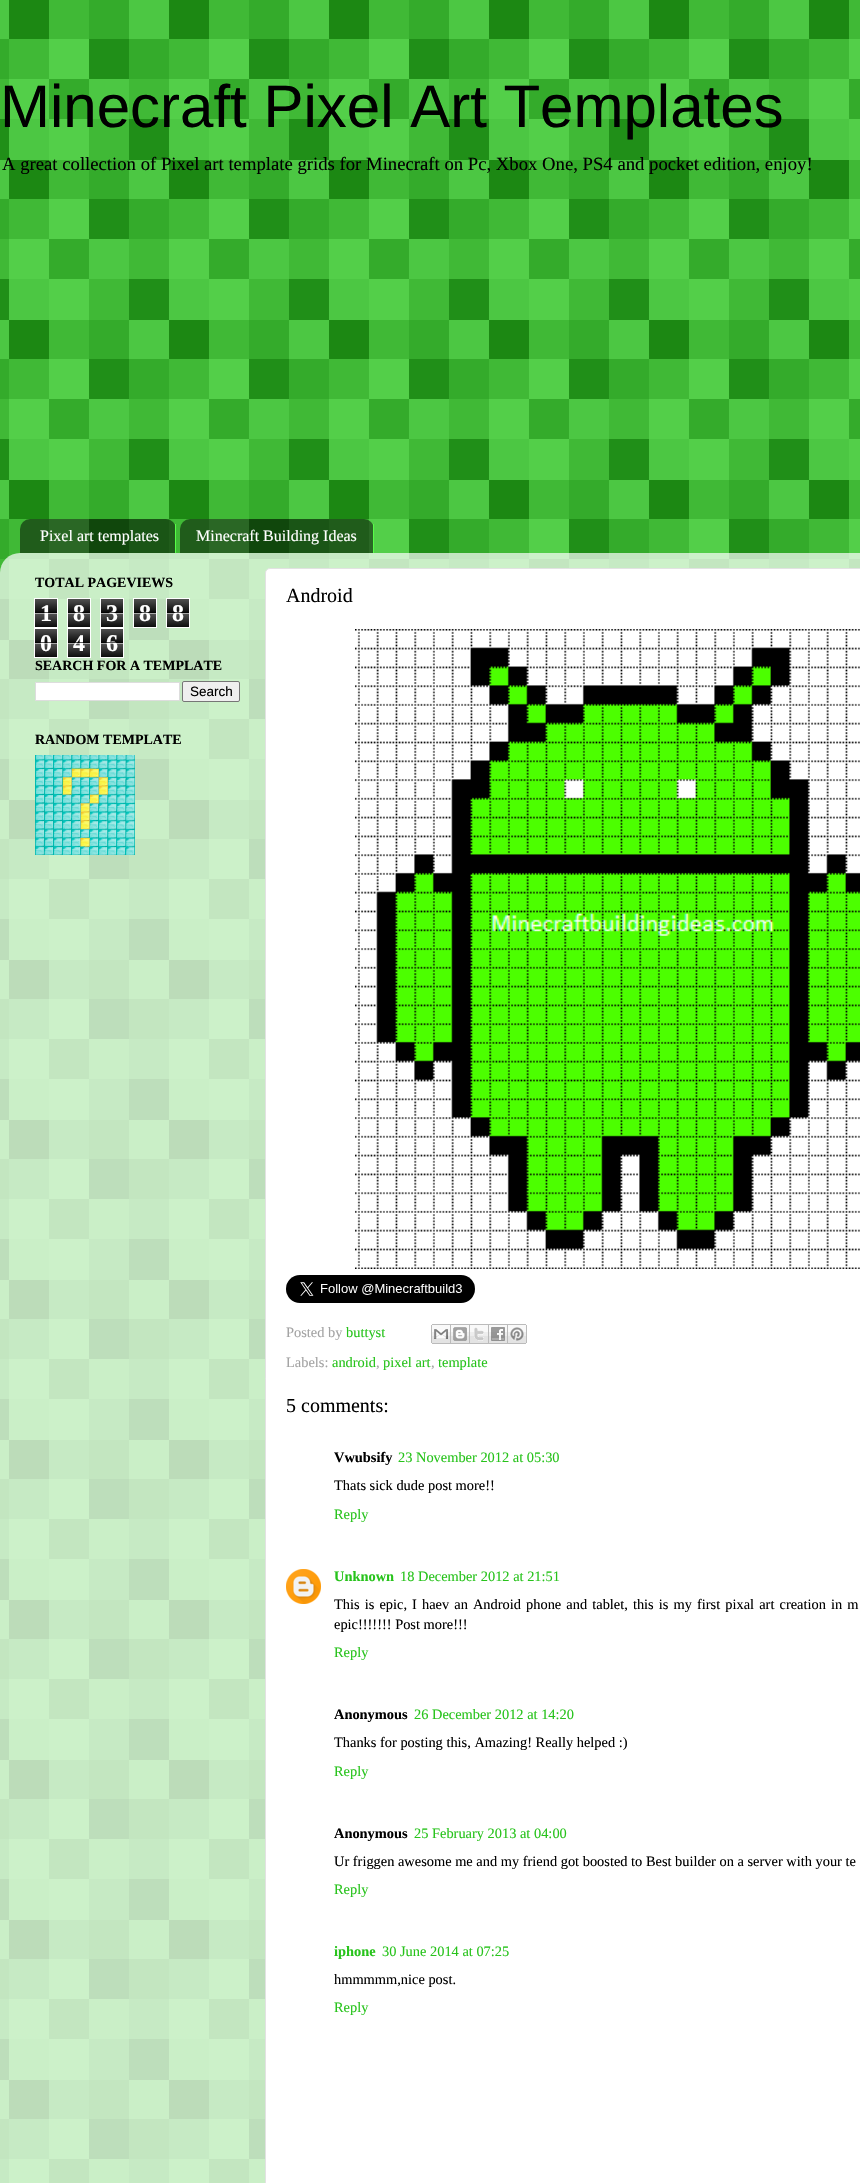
void draw(SkCanvas* canvas) {
    SkPaint paint;
    paint.setAntiAlias(true);
    auto spacedText = [&](const char* s, float x, float y, const SkFont& font, const SkPaint& ink, float letter, float word) {
        std::vector<SkGlyphID> glyphs(font.countText(s, strlen(s), SkTextEncoding::kUTF8));
        std::vector<float> xs(glyphs.size());
        font.textToGlyphs(s, strlen(s), SkTextEncoding::kUTF8, glyphs);
        font.getXPos(glyphs, xs, x);
        float extra = 0;
        for (size_t i = 0; i < glyphs.size(); i++) {
            xs[i] += extra;
            extra += letter + word * (glyphs[i] == font.unicharToGlyph(' '));
        }
        canvas->drawTextBlob(SkTextBlob::MakeFromPosHGlyphs(glyphs, xs, y, font), 0, 0, ink);
    };
    canvas->clear(0xFF27C31B);
    canvas->drawImageRect(SkImages::DeferredFromEncodedData(SkData::MakeFromFileName("img1.png")), SkRect::MakeXYWH(0, 0, 860, 2183), SkSamplingOptions());
    SkFont font1(fontMgr->matchFamilyStyle("Liberation Sans", SkFontStyle::Normal()), 60);
    font1.setSubpixel(true);
    paint.setColor(0xFF000000);
    canvas->drawString("Minecraft Pixel Art Templates", 0, 127, font1, paint);
    SkFont font2(fontMgr->matchFamilyStyle("Liberation Serif", SkFontStyle::Normal()), 18.7f);
    font2.setSubpixel(true);
    canvas->drawString("A great collection of Pixel art template grids for Minecraft on Pc, Xbox One, PS4 and pocket edition, enjoy!", 2, 170, font2, paint);
    canvas->drawImageRect(SkImages::DeferredFromEncodedData(SkData::MakeFromFileName("img2.png")), SkRect::MakeXYWH(20, 519, 155, 34), SkSamplingOptions());
    paint.setColor(0xFF56FF47);
    canvas->drawRect(SkRect::MakeXYWH(175, 524, 1, 29), paint);
    SkFont font3(fontMgr->matchFamilyStyle("Liberation Serif", SkFontStyle::Normal()), 16);
    font3.setSubpixel(true);
    paint.setColor(0xFFFFFFFF);
    canvas->drawString("Pixel art templates", 40, 541, font3, paint);
    canvas->drawImageRect(SkImages::DeferredFromEncodedData(SkData::MakeFromFileName("img3.png")), SkRect::MakeXYWH(180, 519, 193, 34), SkSamplingOptions());
    paint.setColor(0xFF56FF47);
    canvas->drawRect(SkRect::MakeXYWH(373, 524, 1, 29), paint);
    paint.setColor(0xFFFFFFFF);
    canvas->drawString("Minecraft Building Ideas", 196, 541, font3, paint);
    canvas->drawImageRect(SkImages::DeferredFromEncodedData(SkData::MakeFromFileName("img4.png")), SkRect::MakeXYWH(0, 553, 860, 1630), SkSamplingOptions());
    SkFont font4(fontMgr->matchFamilyStyle("Liberation Serif", SkFontStyle::Bold()), 14);
    font4.setSubpixel(true);
    paint.setColor(0xFF000000);
    canvas->drawString("TOTAL PAGEVIEWS", 35, 587, font4, paint);
    canvas->drawImageRect(SkImages::DeferredFromEncodedData(SkData::MakeFromFileName("img5.png")), SkRect::MakeXYWH(35, 599, 22, 28), SkSamplingOptions());
    paint.setStyle(SkPaint::kStroke_Style);
    paint.setStrokeWidth(1);
    paint.setColor(0xFFFFFFFF);
    canvas->drawRect(SkRect::MakeXYWH(34.5f, 598.5f, 23, 29), paint);
    SkFont font5(fontMgr->matchFamilyStyle("Liberation Serif", SkFontStyle::Bold()), 24);
    font5.setSubpixel(true);
    paint.setStyle(SkPaint::kFill_Style);
    canvas->drawString("1", 40, 621, font5, paint);
    paint.setColor(0xA6000000);
    canvas->drawRect(SkRect::MakeXYWH(35, 612, 22, 1), paint);
    paint.setColor(0xA6FFFFFF);
    canvas->drawRect(SkRect::MakeXYWH(35, 613, 22, 1), paint);
    canvas->drawImageRect(SkImages::DeferredFromEncodedData(SkData::MakeFromFileName("img5.png")), SkRect::MakeXYWH(68, 599, 22, 28), SkSamplingOptions());
    paint.setStyle(SkPaint::kStroke_Style);
    paint.setColor(0xFFFFFFFF);
    canvas->drawRect(SkRect::MakeXYWH(67.5f, 598.5f, 23, 29), paint);
    paint.setStyle(SkPaint::kFill_Style);
    canvas->drawString("8", 73, 621, font5, paint);
    paint.setColor(0xA6000000);
    canvas->drawRect(SkRect::MakeXYWH(68, 612, 22, 1), paint);
    paint.setColor(0xA6FFFFFF);
    canvas->drawRect(SkRect::MakeXYWH(68, 613, 22, 1), paint);
    canvas->drawImageRect(SkImages::DeferredFromEncodedData(SkData::MakeFromFileName("img5.png")), SkRect::MakeXYWH(101, 599, 22, 28), SkSamplingOptions());
    paint.setStyle(SkPaint::kStroke_Style);
    paint.setColor(0xFFFFFFFF);
    canvas->drawRect(SkRect::MakeXYWH(100.5f, 598.5f, 23, 29), paint);
    paint.setStyle(SkPaint::kFill_Style);
    canvas->drawString("3", 106, 621, font5, paint);
    paint.setColor(0xA6000000);
    canvas->drawRect(SkRect::MakeXYWH(101, 612, 22, 1), paint);
    paint.setColor(0xA6FFFFFF);
    canvas->drawRect(SkRect::MakeXYWH(101, 613, 22, 1), paint);
    canvas->drawImageRect(SkImages::DeferredFromEncodedData(SkData::MakeFromFileName("img5.png")), SkRect::MakeXYWH(134, 599, 22, 28), SkSamplingOptions());
    paint.setStyle(SkPaint::kStroke_Style);
    paint.setColor(0xFFFFFFFF);
    canvas->drawRect(SkRect::MakeXYWH(133.5f, 598.5f, 23, 29), paint);
    paint.setStyle(SkPaint::kFill_Style);
    canvas->drawString("8", 139, 621, font5, paint);
    paint.setColor(0xA6000000);
    canvas->drawRect(SkRect::MakeXYWH(134, 612, 22, 1), paint);
    paint.setColor(0xA6FFFFFF);
    canvas->drawRect(SkRect::MakeXYWH(134, 613, 22, 1), paint);
    canvas->drawImageRect(SkImages::DeferredFromEncodedData(SkData::MakeFromFileName("img5.png")), SkRect::MakeXYWH(167, 599, 22, 28), SkSamplingOptions());
    paint.setStyle(SkPaint::kStroke_Style);
    paint.setColor(0xFFFFFFFF);
    canvas->drawRect(SkRect::MakeXYWH(166.5f, 598.5f, 23, 29), paint);
    paint.setStyle(SkPaint::kFill_Style);
    canvas->drawString("8", 172, 621, font5, paint);
    paint.setColor(0xA6000000);
    canvas->drawRect(SkRect::MakeXYWH(167, 612, 22, 1), paint);
    paint.setColor(0xA6FFFFFF);
    canvas->drawRect(SkRect::MakeXYWH(167, 613, 22, 1), paint);
    canvas->drawImageRect(SkImages::DeferredFromEncodedData(SkData::MakeFromFileName("img5.png")), SkRect::MakeXYWH(35, 629, 22, 28), SkSamplingOptions());
    paint.setStyle(SkPaint::kStroke_Style);
    paint.setColor(0xFFFFFFFF);
    canvas->drawRect(SkRect::MakeXYWH(34.5f, 628.5f, 23, 29), paint);
    paint.setStyle(SkPaint::kFill_Style);
    canvas->drawString("0", 40, 651, font5, paint);
    paint.setColor(0xA6000000);
    canvas->drawRect(SkRect::MakeXYWH(35, 642, 22, 1), paint);
    paint.setColor(0xA6FFFFFF);
    canvas->drawRect(SkRect::MakeXYWH(35, 643, 22, 1), paint);
    canvas->drawImageRect(SkImages::DeferredFromEncodedData(SkData::MakeFromFileName("img5.png")), SkRect::MakeXYWH(68, 629, 22, 28), SkSamplingOptions());
    paint.setStyle(SkPaint::kStroke_Style);
    paint.setColor(0xFFFFFFFF);
    canvas->drawRect(SkRect::MakeXYWH(67.5f, 628.5f, 23, 29), paint);
    paint.setStyle(SkPaint::kFill_Style);
    canvas->drawString("4", 73, 651, font5, paint);
    paint.setColor(0xA6000000);
    canvas->drawRect(SkRect::MakeXYWH(68, 642, 22, 1), paint);
    paint.setColor(0xA6FFFFFF);
    canvas->drawRect(SkRect::MakeXYWH(68, 643, 22, 1), paint);
    canvas->drawImageRect(SkImages::DeferredFromEncodedData(SkData::MakeFromFileName("img5.png")), SkRect::MakeXYWH(101, 629, 22, 28), SkSamplingOptions());
    paint.setStyle(SkPaint::kStroke_Style);
    paint.setColor(0xFFFFFFFF);
    canvas->drawRect(SkRect::MakeXYWH(100.5f, 628.5f, 23, 29), paint);
    paint.setStyle(SkPaint::kFill_Style);
    canvas->drawString("6", 106, 651, font5, paint);
    paint.setColor(0xA6000000);
    canvas->drawRect(SkRect::MakeXYWH(101, 642, 22, 1), paint);
    paint.setColor(0xA6FFFFFF);
    canvas->drawRect(SkRect::MakeXYWH(101, 643, 22, 1), paint);
    paint.setColor(0xFF000000);
    canvas->drawString("SEARCH FOR A TEMPLATE", 35, 670, font4, paint);
    paint.setColor(0xFFFFFFFF);
    canvas->drawRect(SkRect::MakeXYWH(35.5f, 682.5f, 144, 18), paint);
    paint.setStyle(SkPaint::kStroke_Style);
    paint.setColor(0xFFDDDDDD);
    canvas->drawRect(SkRect::MakeXYWH(35.5f, 682.5f, 144, 18), paint);
    paint.setStyle(SkPaint::kFill_Style);
    paint.setColor(0xFFEFEFEF);
    canvas->drawRoundRect(SkRect::MakeXYWH(182.5f, 681.5f, 57, 20), 1.5f, 1.5f, paint);
    paint.setStyle(SkPaint::kStroke_Style);
    paint.setColor(0xFF767676);
    canvas->drawRoundRect(SkRect::MakeXYWH(182.5f, 681.5f, 57, 20), 1.5f, 1.5f, paint);
    SkFont font6(fontMgr->matchFamilyStyle("Liberation Sans", SkFontStyle::Normal()), 13.5f);
    font6.setSubpixel(true);
    paint.setStyle(SkPaint::kFill_Style);
    paint.setColor(0xFF000000);
    canvas->drawString("Search", 190, 696, font6, paint);
    canvas->drawString("RANDOM TEMPLATE", 35, 744, font4, paint);
    canvas->drawImageRect(SkImages::DeferredFromEncodedData(SkData::MakeFromFileName("img6.png")), SkRect::MakeXYWH(35, 755, 100, 100), SkSamplingOptions());
    paint.setColor(0xFFFFFFFF);
    canvas->drawRoundRect(SkRect::MakeXYWH(265.5f, 568.5f, 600, 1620), 4.5f, 4.5f, paint);
    paint.setStyle(SkPaint::kStroke_Style);
    paint.setColor(0xFFE2E2E2);
    canvas->drawRoundRect(SkRect::MakeXYWH(265.5f, 568.5f, 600, 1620), 4.5f, 4.5f, paint);
    SkFont font7(fontMgr->matchFamilyStyle("Liberation Serif", SkFontStyle::Normal()), 20);
    font7.setSubpixel(true);
    paint.setStyle(SkPaint::kFill_Style);
    paint.setColor(0xFF000000);
    canvas->drawString("Android", 286, 602, font7, paint);
    canvas->drawImageRect(SkImages::DeferredFromEncodedData(SkData::MakeFromFileName("img7.png")), SkRect::MakeXYWH(355, 629, 505, 640), SkSamplingOptions());
    canvas->drawImageRect(SkImages::DeferredFromEncodedData(SkData::MakeFromFileName("img8.png")), SkRect::MakeXYWH(286, 1275, 189, 28), SkSamplingOptions());
    SkFont font8(fontMgr->matchFamilyStyle("Liberation Serif", SkFontStyle::Normal()), 14.4f);
    font8.setSubpixel(true);
    paint.setColor(0xFFA3A3A3);
    canvas->drawString("Posted by", 286, 1337, font8, paint);
    paint.setColor(0xFF27C31B);
    canvas->drawString("buttyst", 346, 1337, font8, paint);
    canvas->drawImageRect(SkImages::DeferredFromEncodedData(SkData::MakeFromFileName("img9.png")), SkRect::MakeXYWH(431, 1324, 20, 20), SkSamplingOptions());
    canvas->drawImageRect(SkImages::DeferredFromEncodedData(SkData::MakeFromFileName("img10.png")), SkRect::MakeXYWH(451, 1324, 19, 20), SkSamplingOptions());
    canvas->drawImageRect(SkImages::DeferredFromEncodedData(SkData::MakeFromFileName("img11.png")), SkRect::MakeXYWH(470, 1324, 19, 20), SkSamplingOptions());
    canvas->drawImageRect(SkImages::DeferredFromEncodedData(SkData::MakeFromFileName("img12.png")), SkRect::MakeXYWH(489, 1324, 19, 20), SkSamplingOptions());
    canvas->drawImageRect(SkImages::DeferredFromEncodedData(SkData::MakeFromFileName("img13.png")), SkRect::MakeXYWH(508, 1324, 19, 20), SkSamplingOptions());
    paint.setColor(0xFFA3A3A3);
    canvas->drawString("Labels:", 286, 1367, font8, paint);
    paint.setColor(0xFF27C31B);
    canvas->drawString("android", 332, 1367, font8, paint);
    paint.setColor(0xFFA3A3A3);
    canvas->drawString(",", 376, 1367, font8, paint);
    paint.setColor(0xFF27C31B);
    canvas->drawString("pixel art", 383, 1367, font8, paint);
    paint.setColor(0xFFA3A3A3);
    canvas->drawString(",", 431, 1367, font8, paint);
    paint.setColor(0xFF27C31B);
    canvas->drawString("template", 438, 1367, font8, paint);
    paint.setColor(0xFF000000);
    canvas->drawString("5 comments:", 286, 1412, font7, paint);
    SkFont font9(fontMgr->matchFamilyStyle("Liberation Serif", SkFontStyle::Bold()), 14.4f);
    font9.setSubpixel(true);
    canvas->drawString("Vwubsify", 334, 1462, font9, paint);
    paint.setColor(0xFF27C31B);
    canvas->drawString("23 November 2012 at 05:30", 398, 1462, font8, paint);
    paint.setColor(0xFF000000);
    canvas->drawString("Thats sick dude post more!!", 334, 1490, font8, paint);
    paint.setColor(0xFF27C31B);
    canvas->drawString("Reply", 334, 1519, font8, paint);
    canvas->drawImageRect(SkImages::DeferredFromEncodedData(SkData::MakeFromFileName("img14.png")), SkRect::MakeXYWH(286, 1569, 35, 35), SkSamplingOptions());
    canvas->drawString("Unknown", 334, 1581, font9, paint);
    canvas->drawString("18 December 2012 at 21:51", 400, 1581, font8, paint);
    paint.setColor(0xFF000000);
    spacedText("This is epic, I haev an Android phone and tablet, this is my first pixal art creation in m", 334, 1609, font8, paint, 0, 1.5f);
    canvas->drawString("epic!!!!!!! Post more!!!", 334, 1629, font8, paint);
    paint.setColor(0xFF27C31B);
    canvas->drawString("Reply", 334, 1657, font8, paint);
    paint.setColor(0xFF000000);
    canvas->drawString("Anonymous", 334, 1719, font9, paint);
    paint.setColor(0xFF27C31B);
    canvas->drawString("26 December 2012 at 14:20", 414, 1719, font8, paint);
    paint.setColor(0xFF000000);
    canvas->drawString("Thanks for posting this, Amazing! Really helped :)", 334, 1747, font8, paint);
    paint.setColor(0xFF27C31B);
    canvas->drawString("Reply", 334, 1776, font8, paint);
    paint.setColor(0xFF000000);
    canvas->drawString("Anonymous", 334, 1838, font9, paint);
    paint.setColor(0xFF27C31B);
    canvas->drawString("25 February 2013 at 04:00", 414, 1838, font8, paint);
    paint.setColor(0xFF000000);
    canvas->drawString("Ur friggen awesome me and my friend got boosted to Best builder on a server with your te", 334, 1866, font8, paint);
    paint.setColor(0xFF27C31B);
    canvas->drawString("Reply", 334, 1894, font8, paint);
    canvas->drawString("iphone", 334, 1956, font9, paint);
    canvas->drawString("30 June 2014 at 07:25", 382, 1956, font8, paint);
    paint.setColor(0xFF000000);
    canvas->drawString("hmmmmm,nice post.", 334, 1984, font8, paint);
    paint.setColor(0xFF27C31B);
    canvas->drawString("Reply", 334, 2012, font8, paint);
}
